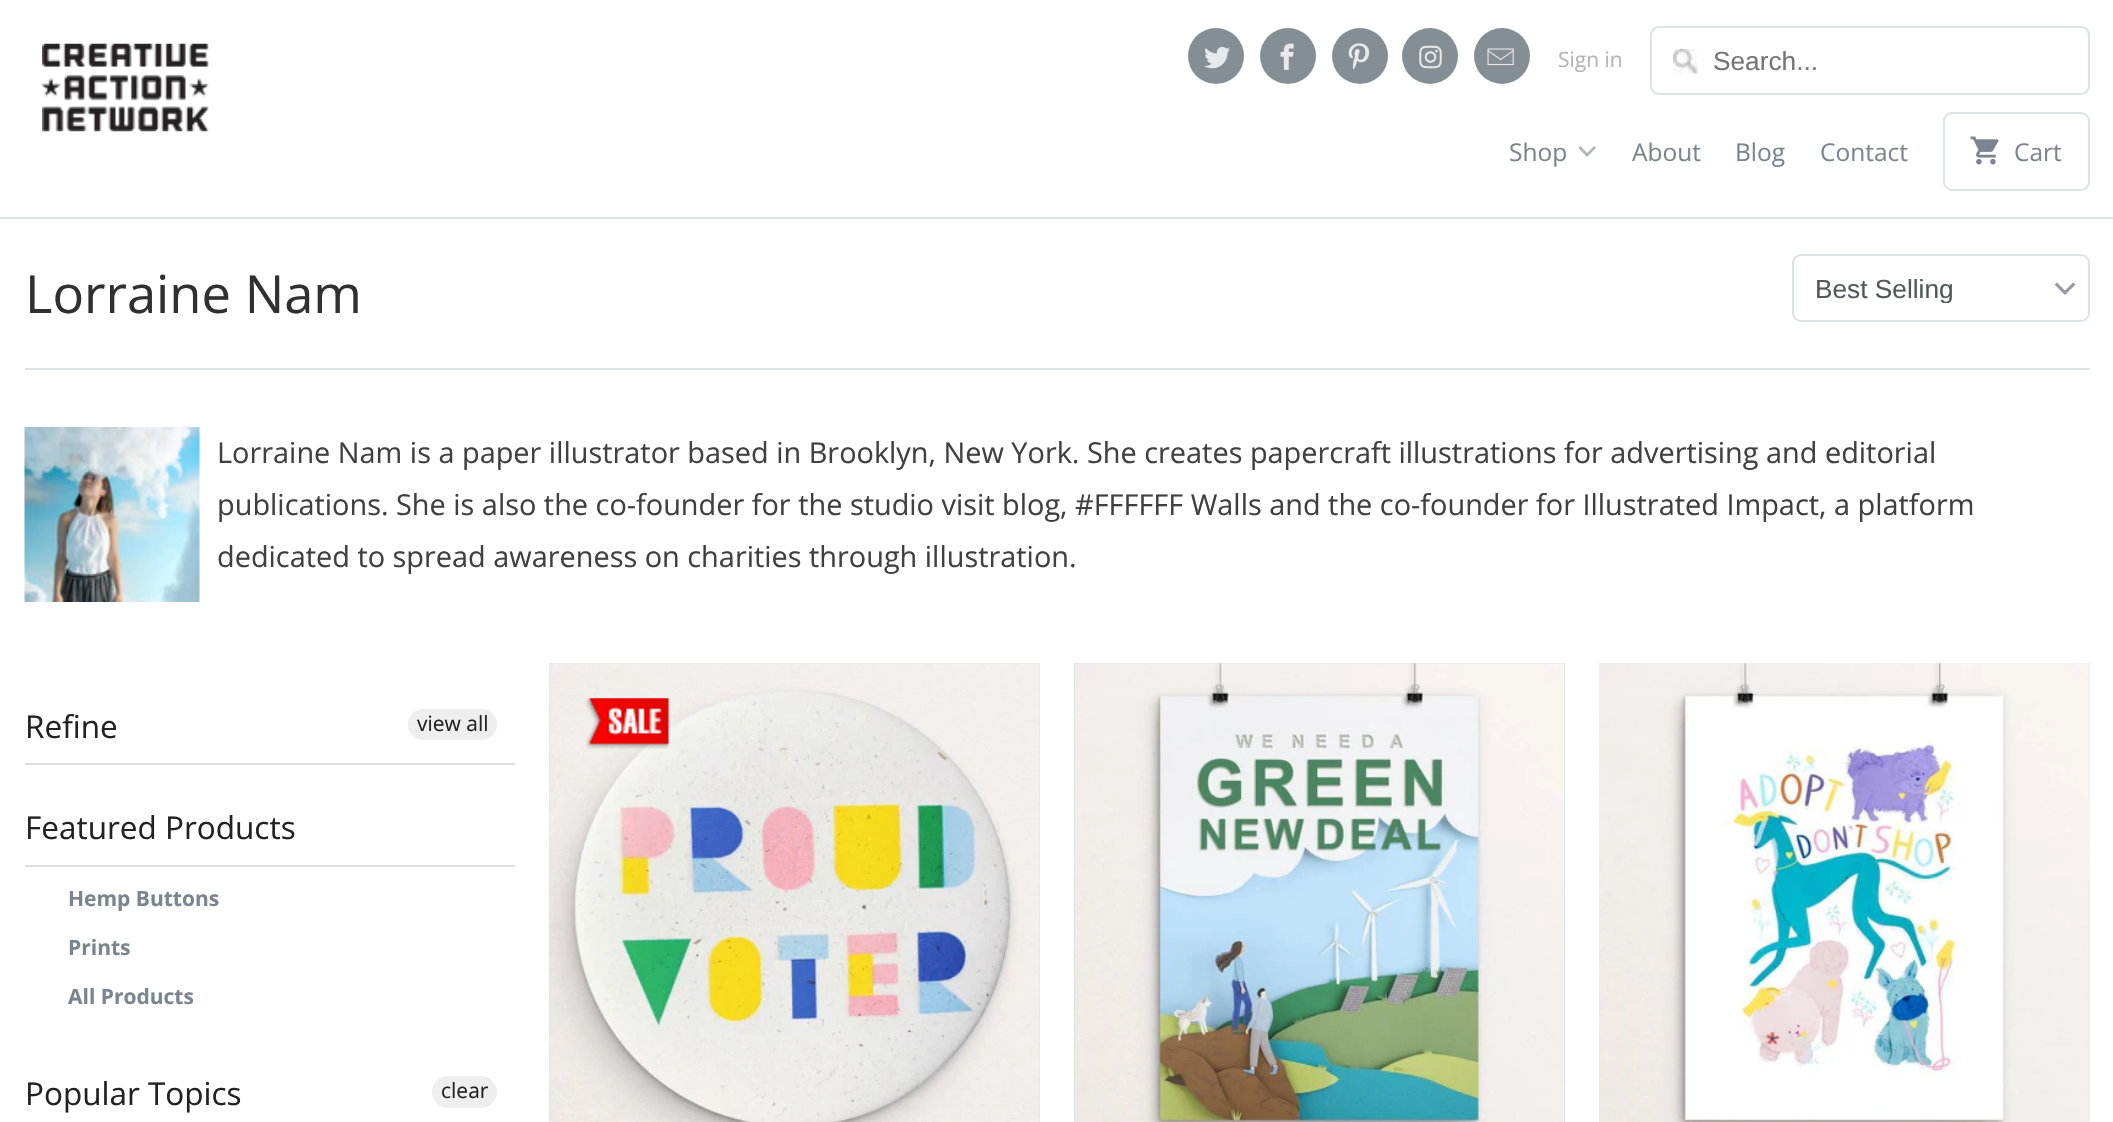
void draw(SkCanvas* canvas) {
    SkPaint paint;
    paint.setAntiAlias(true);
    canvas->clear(0xFFFFFFFF);
    paint.setColor(0xFFDBE3E5);
    canvas->drawRect(SkRect::MakeXYWH(0, 217, 2113, 2), paint);
    canvas->drawImageRect(SkImages::DeferredFromEncodedData(SkData::MakeFromFileName("img1.png")), SkRect::MakeXYWH(42, 43, 167, 89), SkSamplingOptions());
    paint.setColor(0xFF858D95);
    canvas->drawCircle(1216, 56, 28, paint);
    canvas->drawImageRect(SkImages::DeferredFromEncodedData(SkData::MakeFromFileName("img2.png")), SkRect::MakeXYWH(1204, 46, 26, 23), SkSamplingOptions());
    canvas->drawCircle(1288, 56, 28, paint);
    canvas->drawImageRect(SkImages::DeferredFromEncodedData(SkData::MakeFromFileName("img3.png")), SkRect::MakeXYWH(1280, 43, 14, 27), SkSamplingOptions());
    canvas->drawCircle(1360, 56, 28, paint);
    canvas->drawImageRect(SkImages::DeferredFromEncodedData(SkData::MakeFromFileName("img4.png")), SkRect::MakeXYWH(1348, 43, 22, 27), SkSamplingOptions());
    canvas->drawCircle(1430, 56, 28, paint);
    canvas->drawImageRect(SkImages::DeferredFromEncodedData(SkData::MakeFromFileName("img5.png")), SkRect::MakeXYWH(1419, 45, 23, 24), SkSamplingOptions());
    canvas->drawCircle(1502, 56, 28, paint);
    canvas->drawImageRect(SkImages::DeferredFromEncodedData(SkData::MakeFromFileName("img6.png")), SkRect::MakeXYWH(1487, 48, 27, 18), SkSamplingOptions());
    SkFont font1(fontMgr->matchFamilyStyle("Open Sans", SkFontStyle::Normal()), 21);
    font1.setSubpixel(true);
    paint.setColor(0xFFB3B3B3);
    canvas->drawString("Sign in", 1558, 67, font1, paint);
    canvas->drawImageRect(SkImages::DeferredFromEncodedData(SkData::MakeFromFileName("img7.png")), SkRect::MakeXYWH(1673, 49, 25, 25), SkSamplingOptions());
    paint.setStyle(SkPaint::kStroke_Style);
    paint.setStrokeWidth(2);
    paint.setColor(0xFFDBE3E5);
    canvas->drawRoundRect(SkRect::MakeXYWH(1651, 27, 438, 67), 8, 8, paint);
    SkFont font2(fontMgr->matchFamilyStyle("Liberation Sans", SkFontStyle::Normal()), 26.25f);
    font2.setSubpixel(true);
    paint.setStyle(SkPaint::kFill_Style);
    paint.setColor(0xFF757575);
    canvas->drawString("Search...", 1713, 70, font2, paint);
    SkFont font3(fontMgr->matchFamilyStyle("Open Sans", SkFontStyle::Normal()), 24.5f);
    font3.setSubpixel(true);
    paint.setColor(0xFF7B858F);
    canvas->drawString("Shop", 1509, 161, font3, paint);
    paint.setColor(0xFFB0B6BC);
    canvas->drawPath(SkPathBuilder().moveTo(1594, 146).lineTo(1587, 153).lineTo(1580.5f, 146).lineTo(1578.5f, 148).lineTo(1587, 157).lineTo(1596, 148).close().detach(), paint);
    paint.setColor(0xFF7B858F);
    canvas->drawString("About", 1632, 161, font3, paint);
    canvas->drawString("Blog", 1735, 161, font3, paint);
    canvas->drawString("Contact", 1820, 161, font3, paint);
    paint.setStyle(SkPaint::kStroke_Style);
    paint.setColor(0xFFDBE3E5);
    canvas->drawRoundRect(SkRect::MakeXYWH(1944, 113, 145, 77), 8, 8, paint);
    canvas->drawImageRect(SkImages::DeferredFromEncodedData(SkData::MakeFromFileName("img8.png")), SkRect::MakeXYWH(1970, 136, 29, 29), SkSamplingOptions());
    paint.setStyle(SkPaint::kFill_Style);
    paint.setColor(0xFF7B858F);
    canvas->drawString("Cart", 2014, 161, font3, paint);
    paint.setColor(0xFFDBE3E5);
    canvas->drawRect(SkRect::MakeXYWH(25, 368, 2065, 2), paint);
    SkFont font4(fontMgr->matchFamilyStyle("Open Sans", SkFontStyle::Normal()), 52.5f);
    font4.setSubpixel(true);
    paint.setColor(0xFF303030);
    canvas->drawString("Lorraine Nam", 25, 313, font4, paint);
    paint.setColor(0xFF959BA2);
    canvas->drawPath(SkPathBuilder().moveTo(2073, 282.5f).lineTo(2065, 290.5f).lineTo(2057, 282.5f).lineTo(2054.5f, 284.5f).lineTo(2065, 295).lineTo(2075.5f, 284.5f).close().detach(), paint);
    paint.setStyle(SkPaint::kStroke_Style);
    paint.setColor(0xFFDBE3E5);
    canvas->drawRoundRect(SkRect::MakeXYWH(1793, 255, 296, 66), 8, 8, paint);
    canvas->save();
    canvas->clipRect(SkRect::MakeXYWH(1815, 273, 220, 30));
    paint.setStyle(SkPaint::kFill_Style);
    paint.setColor(0xFF51595D);
    canvas->drawString("Best Selling", 1815, 298, font2, paint);
    canvas->restore();
    canvas->drawImageRect(SkImages::DeferredFromEncodedData(SkData::MakeFromFileName("img9.png")), SkRect::MakeXYWH(24, 427, 176, 175), SkSamplingOptions());
    SkFont font5(fontMgr->matchFamilyStyle("Open Sans", SkFontStyle::Normal()), 28.88f);
    font5.setSubpixel(true);
    paint.setColor(0xFF404040);
    canvas->drawString("Lorraine Nam is a paper illustrator based in Brooklyn, New York. She creates papercraft illustrations for advertising and editorial", 217, 463, font5, paint);
    canvas->drawString("publications. She is also the co-founder for the studio visit blog, #FFFFFF Walls and the co-founder for Illustrated Impact, a platform", 217, 515, font5, paint);
    canvas->drawString("dedicated to spread awareness on charities through illustration.", 217, 567, font5, paint);
    paint.setColor(0xFFDDDDDD);
    canvas->drawRect(SkRect::MakeXYWH(25, 763, 490, 2), paint);
    SkFont font6(fontMgr->matchFamilyStyle("Open Sans", SkFontStyle::Normal()), 31.5f);
    font6.setSubpixel(true);
    paint.setColor(0xFF222222);
    canvas->drawString("Refine", 25, 738, font6, paint);
    paint.setColor(0xFFEEEEEE);
    canvas->drawRoundRect(SkRect::MakeXYWH(408, 709, 89, 31), 15.5f, 15.5f, paint);
    paint.setColor(0xFF222222);
    canvas->drawString("view all", 417, 731, font1, paint);
    paint.setColor(0xFFDDDDDD);
    canvas->drawRect(SkRect::MakeXYWH(25, 865, 490, 2), paint);
    paint.setColor(0xFF222222);
    canvas->drawString("Featured Products", 25, 839, font6, paint);
    SkFont font7(fontMgr->matchFamilyStyle("Open Sans", SkFontStyle::Bold()), 21);
    font7.setSubpixel(true);
    paint.setColor(0xFF7B858F);
    canvas->drawString("Hemp Buttons", 68, 906, font7, paint);
    canvas->drawString("Prints", 68, 955, font7, paint);
    canvas->drawString("All Products", 68, 1004, font7, paint);
    paint.setColor(0xFF222222);
    canvas->drawString("Popular Topics", 25, 1105, font6, paint);
    paint.setColor(0xFFEEEEEE);
    canvas->drawRoundRect(SkRect::MakeXYWH(432, 1076, 65, 32), 16, 16, paint);
    paint.setColor(0xFF222222);
    canvas->drawString("clear", 441, 1098, font1, paint);
    paint.setColor(0xFFE2E2D7);
    canvas->drawRect(SkRect::MakeXYWH(549, 663, 491, 459), paint);
    canvas->drawImageRect(SkImages::DeferredFromEncodedData(SkData::MakeFromFileName("img10.png")), SkRect::MakeXYWH(549, 663, 491, 459), SkSamplingOptions());
    canvas->drawImageRect(SkImages::DeferredFromEncodedData(SkData::MakeFromFileName("img11.png")), SkRect::MakeXYWH(585, 698, 84, 51), SkSamplingOptions());
    paint.setColor(0xFFCCD8D4);
    canvas->drawRect(SkRect::MakeXYWH(1074, 663, 491, 459), paint);
    canvas->drawImageRect(SkImages::DeferredFromEncodedData(SkData::MakeFromFileName("img12.png")), SkRect::MakeXYWH(1074, 663, 491, 459), SkSamplingOptions());
    paint.setColor(0xFFE9EEEE);
    canvas->drawRect(SkRect::MakeXYWH(1599, 663, 491, 459), paint);
    canvas->drawImageRect(SkImages::DeferredFromEncodedData(SkData::MakeFromFileName("img13.png")), SkRect::MakeXYWH(1599, 663, 491, 459), SkSamplingOptions());
}
